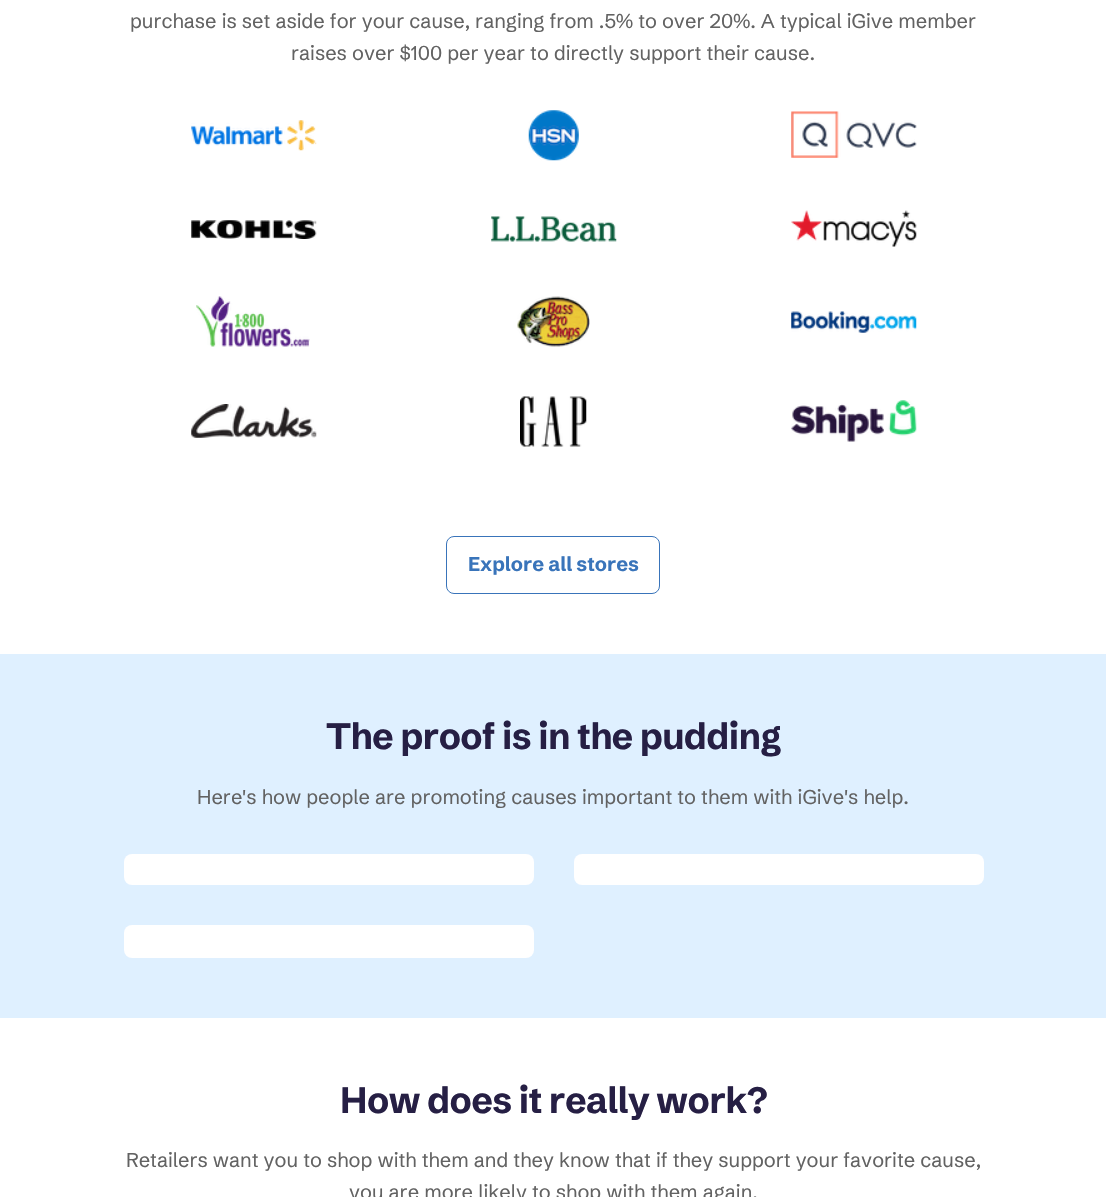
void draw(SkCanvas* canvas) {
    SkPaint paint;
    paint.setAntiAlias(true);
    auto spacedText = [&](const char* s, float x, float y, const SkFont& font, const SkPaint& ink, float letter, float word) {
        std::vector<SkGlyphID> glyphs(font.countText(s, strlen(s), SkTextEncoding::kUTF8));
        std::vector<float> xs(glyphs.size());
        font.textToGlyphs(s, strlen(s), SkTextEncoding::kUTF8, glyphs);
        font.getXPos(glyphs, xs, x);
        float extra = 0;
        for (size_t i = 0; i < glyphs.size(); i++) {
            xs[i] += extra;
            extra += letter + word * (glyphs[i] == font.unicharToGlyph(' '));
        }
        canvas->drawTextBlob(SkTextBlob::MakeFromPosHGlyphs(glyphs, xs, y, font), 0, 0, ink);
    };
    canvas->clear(0xFFFFFFFF);
    SkFont font1(fontMgr->matchFamilyStyle("Schibsted Grotesk", SkFontStyle::Normal()), 20);
    font1.setSubpixel(true);
    paint.setColor(0xFF626262);
    canvas->drawString("purchase is set aside for your cause, ranging from .5% to over 20%. A typical iGive member", 130, 28, font1, paint);
    canvas->drawString("raises over $100 per year to directly support their cause.", 291, 60, font1, paint);
    canvas->drawImageRect(SkImages::DeferredFromEncodedData(SkData::MakeFromFileName("img1.png")), SkRect::MakeXYWH(191, 120, 126, 31), SkSamplingOptions());
    canvas->drawImageRect(SkImages::DeferredFromEncodedData(SkData::MakeFromFileName("img2.png")), SkRect::MakeXYWH(528, 110, 51, 51), SkSamplingOptions());
    canvas->drawImageRect(SkImages::DeferredFromEncodedData(SkData::MakeFromFileName("img3.png")), SkRect::MakeXYWH(791, 111, 126, 47), SkSamplingOptions());
    canvas->drawImageRect(SkImages::DeferredFromEncodedData(SkData::MakeFromFileName("img4.png")), SkRect::MakeXYWH(191, 220, 126, 19), SkSamplingOptions());
    canvas->drawImageRect(SkImages::DeferredFromEncodedData(SkData::MakeFromFileName("img5.png")), SkRect::MakeXYWH(491, 216, 126, 26), SkSamplingOptions());
    canvas->drawImageRect(SkImages::DeferredFromEncodedData(SkData::MakeFromFileName("img6.png")), SkRect::MakeXYWH(791, 210, 126, 37), SkSamplingOptions());
    canvas->drawImageRect(SkImages::DeferredFromEncodedData(SkData::MakeFromFileName("img7.png")), SkRect::MakeXYWH(196, 296, 114, 51), SkSamplingOptions());
    canvas->drawImageRect(SkImages::DeferredFromEncodedData(SkData::MakeFromFileName("img8.png")), SkRect::MakeXYWH(517, 296, 73, 51), SkSamplingOptions());
    canvas->drawImageRect(SkImages::DeferredFromEncodedData(SkData::MakeFromFileName("img9.png")), SkRect::MakeXYWH(791, 311, 126, 22), SkSamplingOptions());
    canvas->drawImageRect(SkImages::DeferredFromEncodedData(SkData::MakeFromFileName("img10.png")), SkRect::MakeXYWH(191, 404, 126, 34), SkSamplingOptions());
    canvas->drawImageRect(SkImages::DeferredFromEncodedData(SkData::MakeFromFileName("img11.png")), SkRect::MakeXYWH(520, 396, 67, 51), SkSamplingOptions());
    canvas->drawImageRect(SkImages::DeferredFromEncodedData(SkData::MakeFromFileName("img12.png")), SkRect::MakeXYWH(791, 400, 126, 42), SkSamplingOptions());
    paint.setStyle(SkPaint::kStroke_Style);
    paint.setStrokeWidth(1);
    paint.setColor(0xFF3974BA);
    canvas->drawRoundRect(SkRect::MakeXYWH(446.5f, 536.5f, 213, 57), 7.5f, 7.5f, paint);
    SkFont font2(fontMgr->matchFamilyStyle("Schibsted Grotesk", SkFontStyle::Bold()), 20);
    font2.setSubpixel(true);
    paint.setStyle(SkPaint::kFill_Style);
    canvas->drawString("Explore all stores", 468, 571, font2, paint);
    paint.setColor(0xFFDFF0FF);
    canvas->drawRect(SkRect::MakeXYWH(0, 654, 1106, 364), paint);
    SkFont font3(fontMgr->matchFamilyStyle("Schibsted Grotesk", SkFontStyle::Bold()), 36.5f);
    font3.setSubpixel(true);
    paint.setColor(0xFF261F44);
    spacedText("The proof is in the pudding", 326, 749, font3, paint, -0.6f, 0);
    paint.setColor(0xFF626262);
    canvas->drawString("Here's how people are promoting causes important to them with iGive's help.", 197, 804, font1, paint);
    paint.setColor(0xFFFFFFFF);
    canvas->drawRoundRect(SkRect::MakeXYWH(124, 854, 410, 31), 8, 8, paint);
    canvas->drawRoundRect(SkRect::MakeXYWH(574, 854, 410, 31), 8, 8, paint);
    canvas->drawRoundRect(SkRect::MakeXYWH(124, 925, 410, 33), 8, 8, paint);
    paint.setColor(0xFF261F44);
    spacedText("How does it really", 340, 1113, font3, paint, -0.6f, 0);
    spacedText("work?", 656, 1113, font3, paint, -0.6f, 0);
    paint.setColor(0xFF626262);
    canvas->drawString("Retailers want you to shop with them and they know that if they support your favorite cause,", 126, 1167, font1, paint);
    canvas->drawString("you are more likely to shop with them again.", 349, 1199, font1, paint);
}
